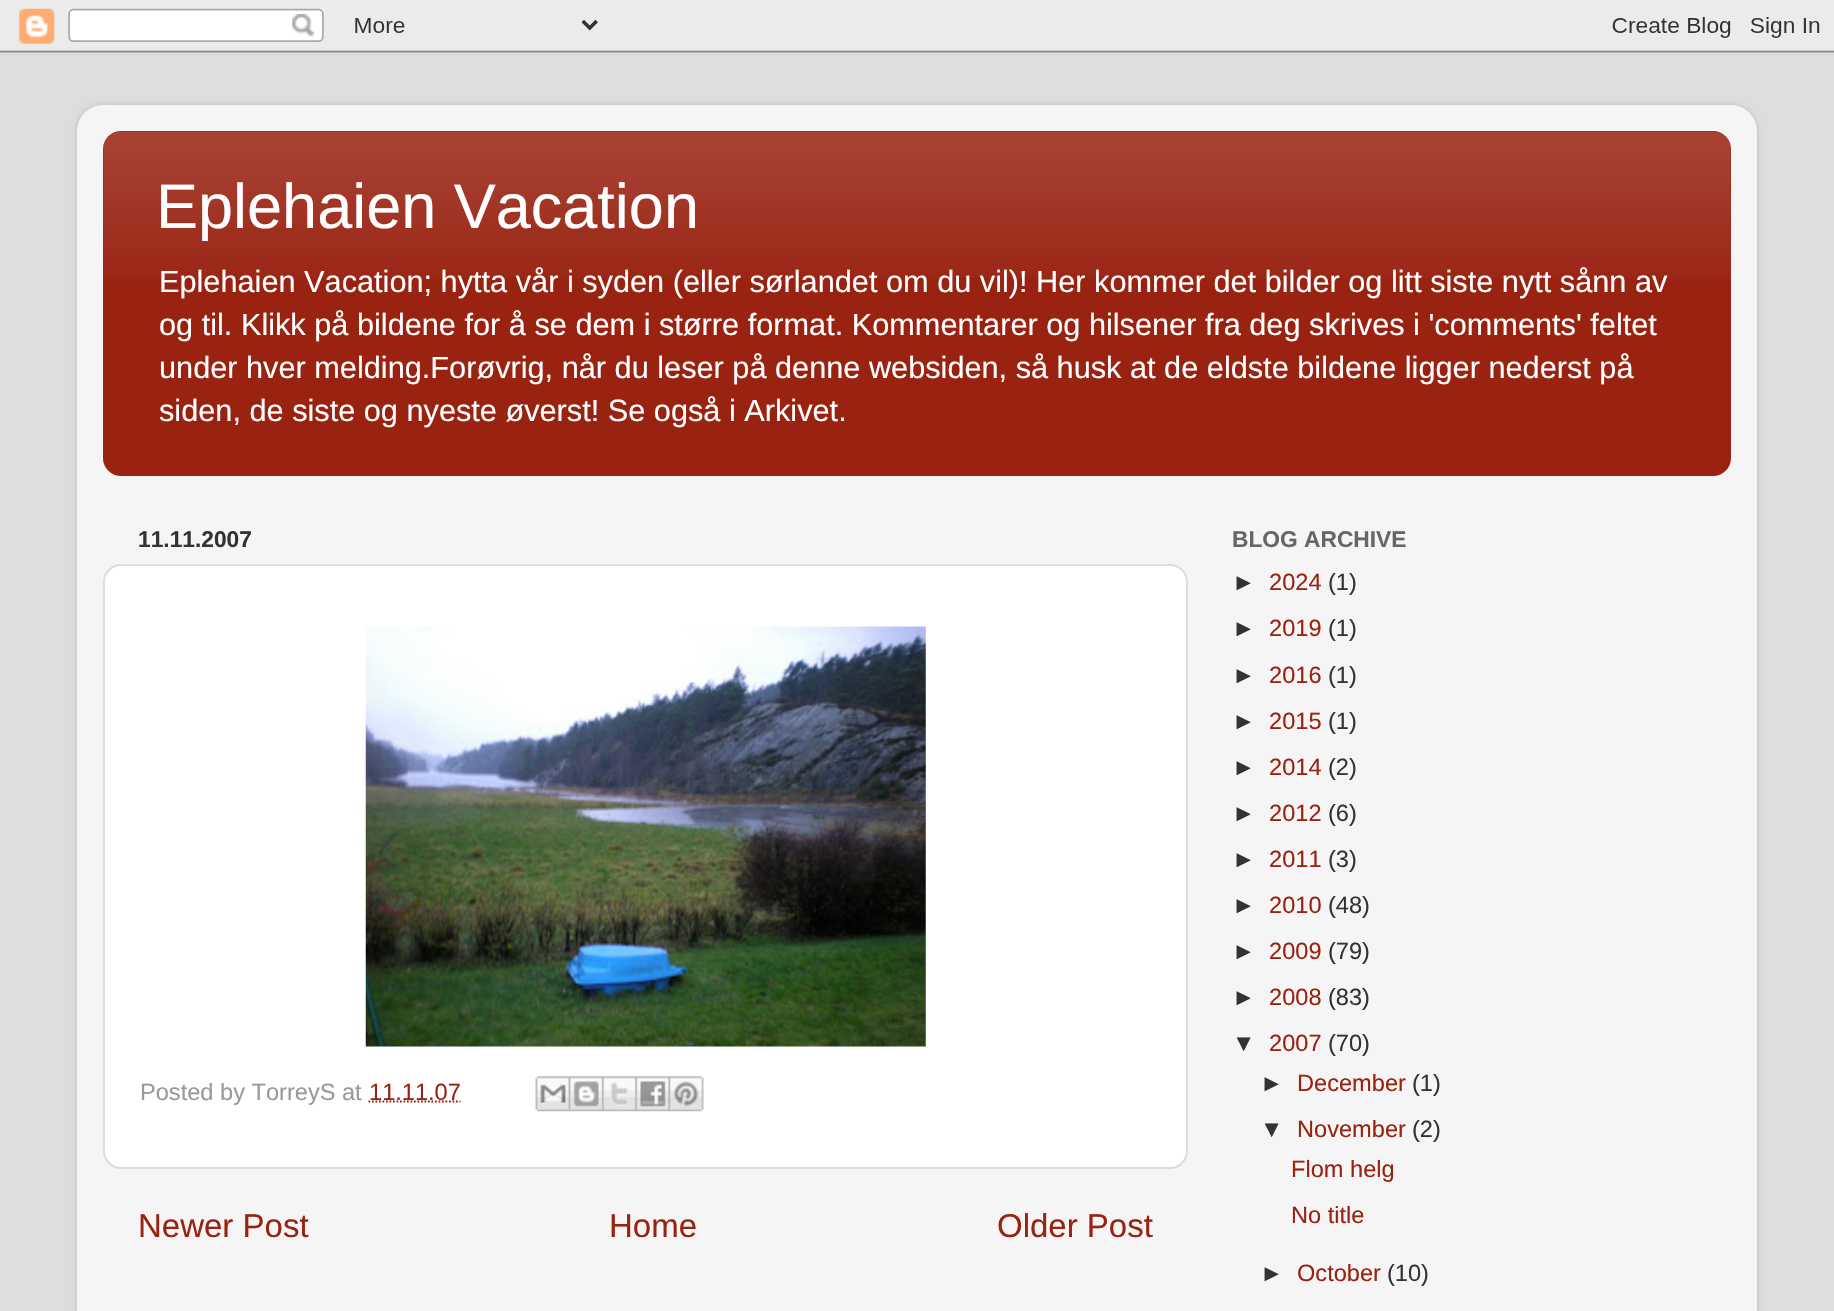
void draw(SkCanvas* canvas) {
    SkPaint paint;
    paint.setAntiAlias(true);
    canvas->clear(0xFFDDDDDD);
    canvas->drawImageRect(SkImages::DeferredFromEncodedData(SkData::MakeFromFileName("img1.png")), SkRect::MakeXYWH(0, 0, 1834, 53), SkSamplingOptions());
    canvas->save();
    canvas->clipPath(SkPathBuilder(SkPathFillType::kEvenOdd).moveTo(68, 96).lineTo(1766, 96).lineTo(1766, 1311).lineTo(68, 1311).close().moveTo(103, 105).lineTo(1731, 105).cubicTo(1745.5f, 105, 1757, 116.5f, 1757, 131).lineTo(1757, 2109).cubicTo(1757, 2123.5f, 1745.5f, 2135, 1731, 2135).lineTo(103, 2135).cubicTo(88.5f, 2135, 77, 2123.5f, 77, 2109).lineTo(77, 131).cubicTo(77, 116.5f, 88.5f, 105, 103, 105).close().detach(), true);
    paint.setColor(0x26000000);
    paint.setMaskFilter(SkMaskFilter::MakeBlur(kNormal_SkBlurStyle, 2.5f));
    canvas->drawRoundRect(SkRect::MakeXYWH(77, 105, 1680, 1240), 26, 26, paint);
    paint.setMaskFilter(nullptr);
    canvas->restore();
    canvas->drawImageRect(SkImages::DeferredFromEncodedData(SkData::MakeFromFileName("img2.png")), SkRect::MakeXYWH(77, 105, 1680, 1206), SkSamplingOptions());
    paint.setColor(0xFF992211);
    canvas->drawRoundRect(SkRect::MakeXYWH(103, 131, 1628, 345), 18, 18, paint);
    canvas->drawImageRect(SkImages::DeferredFromEncodedData(SkData::MakeFromFileName("img3.png")), SkRect::MakeXYWH(103, 131, 1628, 147), SkSamplingOptions());
    SkFont font1(fontMgr->matchFamilyStyle("Liberation Sans", SkFontStyle::Normal()), 63);
    font1.setSubpixel(true);
    paint.setColor(0xFFFFFFFF);
    canvas->drawString("Eplehaien Vacation", 156, 228, font1, paint);
    SkFont font2(fontMgr->matchFamilyStyle("Liberation Sans", SkFontStyle::Normal()), 30.7f);
    font2.setSubpixel(true);
    canvas->drawString("Eplehaien Vacation; hytta vår i syden (eller sørlandet om du vil)! Her kommer det bilder og litt siste nytt sånn av", 159, 292, font2, paint);
    canvas->drawString("og til. Klikk på bildene for å se dem i større format. Kommentarer og hilsener fra deg skrives i 'comments' feltet", 159, 335, font2, paint);
    canvas->drawString("under hver melding.Forøvrig, når du leser på denne websiden, så husk at de eldste bildene ligger nederst på", 159, 378, font2, paint);
    canvas->drawString("siden, de siste og nyeste øverst! Se også i Arkivet.", 159, 421, font2, paint);
    SkFont font3(fontMgr->matchFamilyStyle("Liberation Sans", SkFontStyle::Bold()), 22.75f);
    font3.setSubpixel(true);
    paint.setColor(0xFF333333);
    canvas->drawString("11.11.2007", 138, 547, font3, paint);
    paint.setColor(0xFFFFFFFF);
    canvas->drawRoundRect(SkRect::MakeXYWH(104, 565, 1083, 603), 17, 17, paint);
    paint.setStyle(SkPaint::kStroke_Style);
    paint.setStrokeWidth(2);
    paint.setColor(0xFFDDDDDD);
    canvas->drawRoundRect(SkRect::MakeXYWH(104, 565, 1083, 603), 17, 17, paint);
    canvas->drawImageRect(SkImages::DeferredFromEncodedData(SkData::MakeFromFileName("img4.png")), SkRect::MakeXYWH(365, 626, 561, 421), SkSamplingOptions());
    SkFont font4(fontMgr->matchFamilyStyle("Liberation Sans", SkFontStyle::Normal()), 23.6f);
    font4.setSubpixel(true);
    paint.setStyle(SkPaint::kFill_Style);
    paint.setColor(0xFF999999);
    canvas->drawString("Posted by TorreyS at", 140, 1100, font4, paint);
    paint.setStyle(SkPaint::kStroke_Style);
    paint.setStrokeWidth(1.8f);
    paint.setColor(0xFF992211);
    paint.setPathEffect(SkDashPathEffect::Make({{1.75f, 1.75f}}, 0));
    canvas->drawPath(SkPathBuilder().moveTo(368.5f, 1101.5f).lineTo(460.5f, 1101.5f).detach(), paint);
    paint.setPathEffect(nullptr);
    paint.setStyle(SkPaint::kFill_Style);
    canvas->drawString("11.11.07", 369, 1100, font4, paint);
    canvas->drawImageRect(SkImages::DeferredFromEncodedData(SkData::MakeFromFileName("img5.png")), SkRect::MakeXYWH(535, 1076, 36, 36), SkSamplingOptions());
    canvas->drawImageRect(SkImages::DeferredFromEncodedData(SkData::MakeFromFileName("img6.png")), SkRect::MakeXYWH(568, 1076, 36, 36), SkSamplingOptions());
    canvas->drawImageRect(SkImages::DeferredFromEncodedData(SkData::MakeFromFileName("img7.png")), SkRect::MakeXYWH(602, 1076, 35, 36), SkSamplingOptions());
    canvas->drawImageRect(SkImages::DeferredFromEncodedData(SkData::MakeFromFileName("img8.png")), SkRect::MakeXYWH(635, 1076, 36, 36), SkSamplingOptions());
    canvas->drawImageRect(SkImages::DeferredFromEncodedData(SkData::MakeFromFileName("img9.png")), SkRect::MakeXYWH(668, 1076, 36, 36), SkSamplingOptions());
    SkFont font5(fontMgr->matchFamilyStyle("Liberation Sans", SkFontStyle::Normal()), 33);
    font5.setSubpixel(true);
    canvas->drawString("Newer Post", 138, 1237, font5, paint);
    canvas->drawString("Home", 609, 1237, font5, paint);
    canvas->drawString("Older Post", 997, 1237, font5, paint);
    paint.setColor(0xFF666666);
    canvas->drawString("BLOG ARCHIVE", 1232, 547, font3, paint);
    paint.setColor(0xFF333333);
    canvas->drawString("►", 1232, 590, font4, paint);
    paint.setColor(0xFF992211);
    canvas->drawString("2024", 1269, 590, font4, paint);
    paint.setColor(0xFF333333);
    canvas->drawString("(1)", 1328, 590, font4, paint);
    canvas->drawString("►", 1232, 636, font4, paint);
    paint.setColor(0xFF992211);
    canvas->drawString("2019", 1269, 636, font4, paint);
    paint.setColor(0xFF333333);
    canvas->drawString("(1)", 1328, 636, font4, paint);
    canvas->drawString("►", 1232, 683, font4, paint);
    paint.setColor(0xFF992211);
    canvas->drawString("2016", 1269, 683, font4, paint);
    paint.setColor(0xFF333333);
    canvas->drawString("(1)", 1328, 683, font4, paint);
    canvas->drawString("►", 1232, 729, font4, paint);
    paint.setColor(0xFF992211);
    canvas->drawString("2015", 1269, 729, font4, paint);
    paint.setColor(0xFF333333);
    canvas->drawString("(1)", 1328, 729, font4, paint);
    canvas->drawString("►", 1232, 775, font4, paint);
    paint.setColor(0xFF992211);
    canvas->drawString("2014", 1269, 775, font4, paint);
    paint.setColor(0xFF333333);
    canvas->drawString("(2)", 1328, 775, font4, paint);
    canvas->drawString("►", 1232, 821, font4, paint);
    paint.setColor(0xFF992211);
    canvas->drawString("2012", 1269, 821, font4, paint);
    paint.setColor(0xFF333333);
    canvas->drawString("(6)", 1328, 821, font4, paint);
    canvas->drawString("►", 1232, 867, font4, paint);
    paint.setColor(0xFF992211);
    canvas->drawString("2011", 1269, 867, font4, paint);
    paint.setColor(0xFF333333);
    canvas->drawString("(3)", 1328, 867, font4, paint);
    canvas->drawString("►", 1232, 913, font4, paint);
    paint.setColor(0xFF992211);
    canvas->drawString("2010", 1269, 913, font4, paint);
    paint.setColor(0xFF333333);
    canvas->drawString("(48)", 1328, 913, font4, paint);
    canvas->drawString("►", 1232, 959, font4, paint);
    paint.setColor(0xFF992211);
    canvas->drawString("2009", 1269, 959, font4, paint);
    paint.setColor(0xFF333333);
    canvas->drawString("(79)", 1328, 959, font4, paint);
    canvas->drawString("►", 1232, 1005, font4, paint);
    paint.setColor(0xFF992211);
    canvas->drawString("2008", 1269, 1005, font4, paint);
    paint.setColor(0xFF333333);
    canvas->drawString("(83)", 1328, 1005, font4, paint);
    canvas->drawString("▼", 1232, 1051, font4, paint);
    paint.setColor(0xFF992211);
    canvas->drawString("2007", 1269, 1051, font4, paint);
    paint.setColor(0xFF333333);
    canvas->drawString("(70)", 1328, 1051, font4, paint);
    canvas->drawString("►", 1260, 1091, font4, paint);
    paint.setColor(0xFF992211);
    canvas->drawString("December", 1297, 1091, font4, paint);
    paint.setColor(0xFF333333);
    canvas->drawString("(1)", 1412, 1091, font4, paint);
    canvas->drawString("▼", 1260, 1137, font4, paint);
    paint.setColor(0xFF992211);
    canvas->drawString("November", 1297, 1137, font4, paint);
    paint.setColor(0xFF333333);
    canvas->drawString("(2)", 1412, 1137, font4, paint);
    paint.setColor(0xFF992211);
    canvas->drawString("Flom helg", 1291, 1177, font4, paint);
    canvas->drawString("No title", 1291, 1223, font4, paint);
    paint.setColor(0xFF333333);
    canvas->drawString("►", 1260, 1281, font4, paint);
    paint.setColor(0xFF992211);
    canvas->drawString("October", 1297, 1281, font4, paint);
    paint.setColor(0xFF333333);
    canvas->drawString("(10)", 1387, 1281, font4, paint);
}
